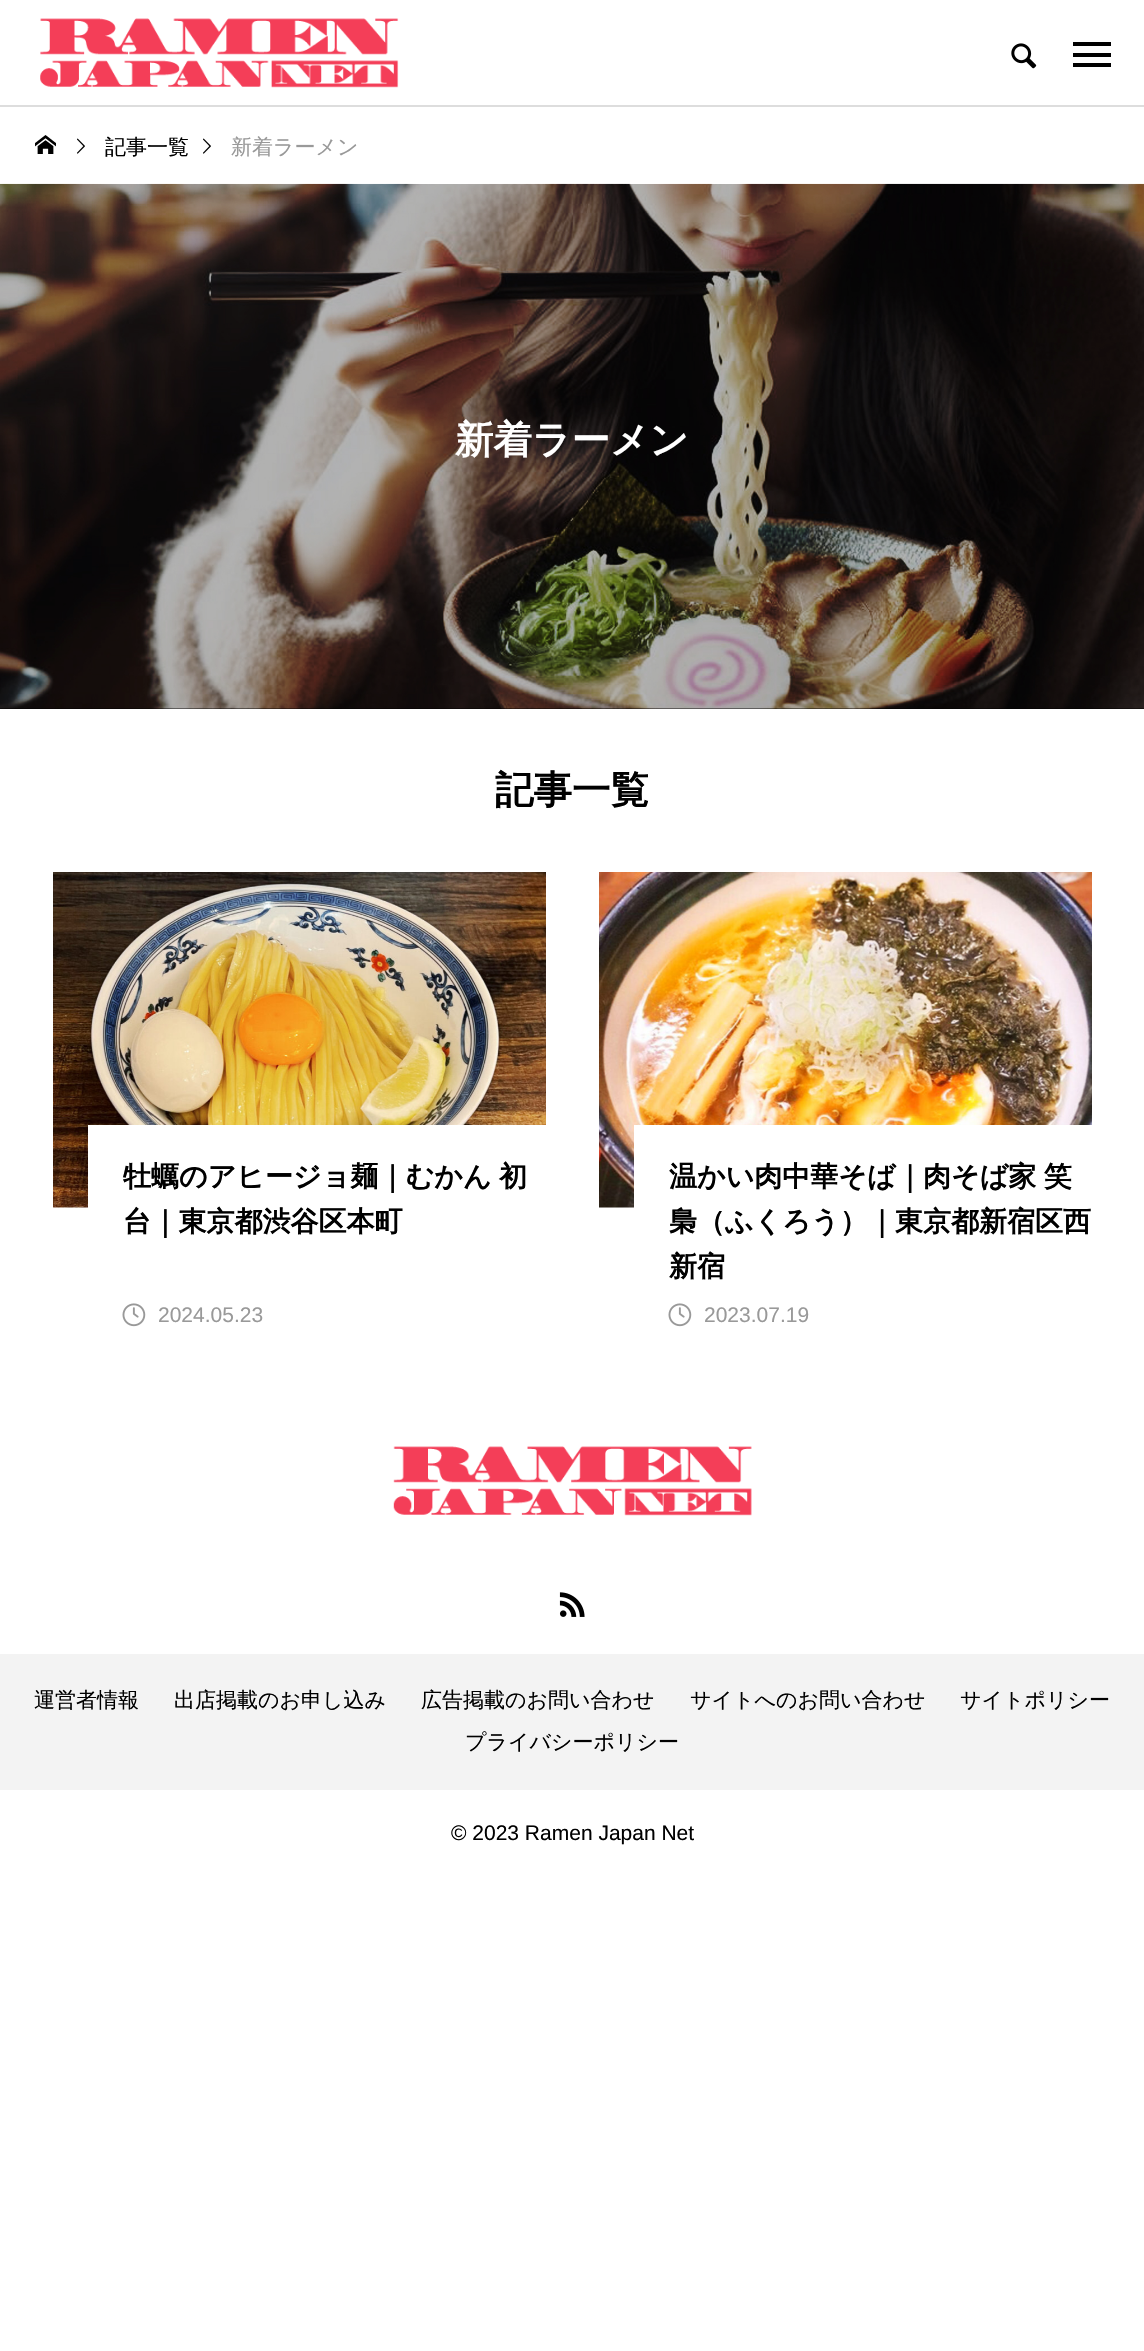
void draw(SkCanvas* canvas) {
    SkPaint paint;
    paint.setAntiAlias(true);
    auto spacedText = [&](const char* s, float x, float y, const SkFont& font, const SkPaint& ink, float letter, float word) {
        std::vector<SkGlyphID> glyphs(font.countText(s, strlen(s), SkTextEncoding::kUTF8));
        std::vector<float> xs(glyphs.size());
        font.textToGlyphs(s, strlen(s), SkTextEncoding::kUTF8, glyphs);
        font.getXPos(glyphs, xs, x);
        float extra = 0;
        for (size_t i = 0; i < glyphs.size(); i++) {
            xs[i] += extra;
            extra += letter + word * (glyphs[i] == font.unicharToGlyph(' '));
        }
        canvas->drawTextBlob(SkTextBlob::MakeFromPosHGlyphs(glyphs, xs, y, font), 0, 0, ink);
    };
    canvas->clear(0xFFFFFFFF);
    canvas->drawImageRect(SkImages::DeferredFromEncodedData(SkData::MakeFromFileName("img1.png")), SkRect::MakeXYWH(40, 18, 359, 70), SkSamplingOptions());
    canvas->drawImageRect(SkImages::DeferredFromEncodedData(SkData::MakeFromFileName("img2.png")), SkRect::MakeXYWH(1011, 43, 26, 26), SkSamplingOptions());
    paint.setColor(0xFF000000);
    canvas->drawRect(SkRect::MakeXYWH(1073, 42, 38, 4), paint);
    canvas->drawRect(SkRect::MakeXYWH(1073, 53, 38, 4), paint);
    canvas->drawRect(SkRect::MakeXYWH(1073, 63, 38, 4), paint);
    paint.setColor(0xFFDDDDDD);
    canvas->drawRect(SkRect::MakeXYWH(0, 105, 1144, 2), paint);
    canvas->drawImageRect(SkImages::DeferredFromEncodedData(SkData::MakeFromFileName("img3.png")), SkRect::MakeXYWH(35, 135, 21, 19), SkSamplingOptions());
    canvas->drawImageRect(SkImages::DeferredFromEncodedData(SkData::MakeFromFileName("img4.png")), SkRect::MakeXYWH(77, 138, 8, 16), SkSamplingOptions());
    SkFont font1(fontMgr->matchFamilyStyle("WenQuanYi Zen Hei", SkFontStyle(500, SkFontStyle::kNormal_Width, SkFontStyle::kUpright_Slant)), 21);
    font1.setSubpixel(true);
    paint.setColor(0xFF000000);
    canvas->drawString("記事一覧", 105, 154, font1, paint);
    canvas->drawImageRect(SkImages::DeferredFromEncodedData(SkData::MakeFromFileName("img4.png")), SkRect::MakeXYWH(203, 138, 8, 16), SkSamplingOptions());
    paint.setColor(0xFF999999);
    canvas->drawString("新着ラーメン", 231, 154, font1, paint);
    paint.setColor(0xFF000000);
    canvas->drawRect(SkRect::MakeXYWH(0, 708, 1144, 1), paint);
    canvas->drawImageRect(SkImages::DeferredFromEncodedData(SkData::MakeFromFileName("img5.png")), SkRect::MakeXYWH(0, 183, 1144, 526), SkSamplingOptions());
    SkFont font2(fontMgr->matchFamilyStyle("WenQuanYi Zen Hei", SkFontStyle::Bold()), 38.5f);
    font2.setSubpixel(true);
    paint.setColor(0xFFFFFFFF);
    canvas->drawString("新着ラーメン", 455, 453, font2, paint);
    paint.setColor(0xFF000000);
    canvas->drawString("記事一覧", 495, 803, font2, paint);
    canvas->drawImageRect(SkImages::DeferredFromEncodedData(SkData::MakeFromFileName("img6.png")), SkRect::MakeXYWH(53, 872, 493, 336), SkSamplingOptions());
    paint.setColor(0xFFFFFFFF);
    canvas->drawRect(SkRect::MakeXYWH(88, 1125, 458, 83), paint);
    SkFont font3(fontMgr->matchFamilyStyle("WenQuanYi Zen Hei", SkFontStyle::Bold()), 28);
    font3.setSubpixel(true);
    paint.setColor(0xFF000000);
    spacedText("牡蠣のアヒージョ麺｜むかん 初", 123, 1186, font3, paint, 0, -1);
    canvas->drawString("台｜東京都渋谷区本町", 123, 1231, font3, paint);
    canvas->drawImageRect(SkImages::DeferredFromEncodedData(SkData::MakeFromFileName("img7.png")), SkRect::MakeXYWH(122, 1303, 24, 24), SkSamplingOptions());
    SkFont font4(fontMgr->matchFamilyStyle("Liberation Sans", SkFontStyle::Normal()), 21);
    font4.setSubpixel(true);
    paint.setColor(0xFF999999);
    canvas->drawString("2024.05.23", 158, 1322, font4, paint);
    canvas->drawImageRect(SkImages::DeferredFromEncodedData(SkData::MakeFromFileName("img8.png")), SkRect::MakeXYWH(599, 872, 493, 336), SkSamplingOptions());
    paint.setColor(0xFFFFFFFF);
    canvas->drawRect(SkRect::MakeXYWH(634, 1125, 458, 83), paint);
    paint.setColor(0xFF000000);
    spacedText("温かい肉中華そば｜肉そば家 笑", 669, 1186, font3, paint, 0, -1);
    canvas->drawString("梟（ふくろう）｜東京都新宿区西", 669, 1231, font3, paint);
    canvas->drawString("新宿", 669, 1276, font3, paint);
    canvas->drawImageRect(SkImages::DeferredFromEncodedData(SkData::MakeFromFileName("img7.png")), SkRect::MakeXYWH(668, 1303, 24, 24), SkSamplingOptions());
    paint.setColor(0xFF999999);
    canvas->drawString("2023.07.19", 704, 1322, font4, paint);
    canvas->drawImageRect(SkImages::DeferredFromEncodedData(SkData::MakeFromFileName("img9.png")), SkRect::MakeXYWH(393, 1446, 359, 70), SkSamplingOptions());
    canvas->drawImageRect(SkImages::DeferredFromEncodedData(SkData::MakeFromFileName("img10.png")), SkRect::MakeXYWH(559, 1592, 26, 25), SkSamplingOptions());
    paint.setColor(0xFFF3F3F3);
    canvas->drawRect(SkRect::MakeXYWH(0, 1654, 1144, 136), paint);
    paint.setColor(0xFF000000);
    canvas->drawString("運営者情報", 34, 1707, font1, paint);
    canvas->drawString("出店掲載のお申し込み", 174, 1707, font1, paint);
    canvas->drawString("広告掲載のお問い合わせ", 421, 1707, font1, paint);
    canvas->drawString("サイトへのお問い合わせ", 690, 1707, font1, paint);
    canvas->drawString("サイトポリシー", 960, 1707, font1, paint);
    canvas->drawString("プライバシーポリシー", 465, 1749, font1, paint);
    canvas->drawString("© 2023 Ramen Japan Net", 451, 1840, font4, paint);
}
